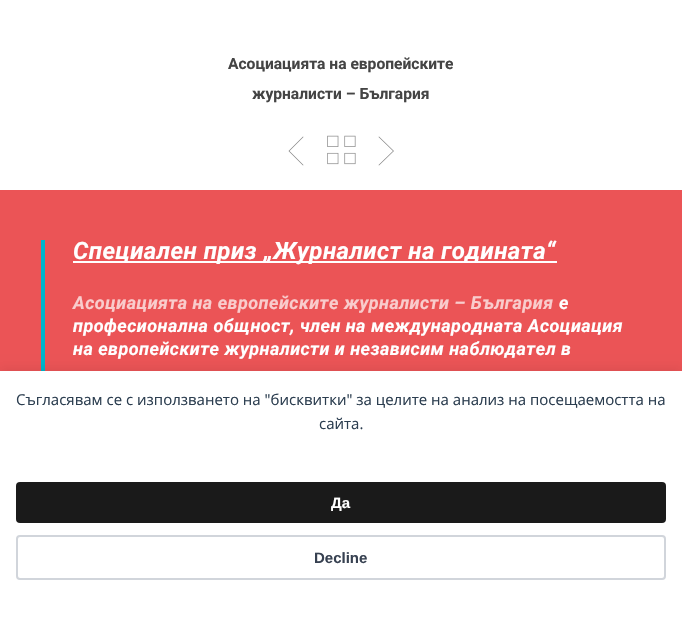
void draw(SkCanvas* canvas) {
    SkPaint paint;
    paint.setAntiAlias(true);
    auto spacedText = [&](const char* s, float x, float y, const SkFont& font, const SkPaint& ink, float letter, float word) {
        std::vector<SkGlyphID> glyphs(font.countText(s, strlen(s), SkTextEncoding::kUTF8));
        std::vector<float> xs(glyphs.size());
        font.textToGlyphs(s, strlen(s), SkTextEncoding::kUTF8, glyphs);
        font.getXPos(glyphs, xs, x);
        float extra = 0;
        for (size_t i = 0; i < glyphs.size(); i++) {
            xs[i] += extra;
            extra += letter + word * (glyphs[i] == font.unicharToGlyph(' '));
        }
        canvas->drawTextBlob(SkTextBlob::MakeFromPosHGlyphs(glyphs, xs, y, font), 0, 0, ink);
    };
    canvas->clear(0xFFFFFFFF);
    SkFont font1(fontMgr->matchFamilyStyle("Roboto", SkFontStyle::Bold()), 15.6f);
    font1.setSubpixel(true);
    paint.setColor(0xFF444444);
    canvas->drawString("Асоциацията на европейските", 228, 69, font1, paint);
    canvas->drawString("журналисти – България", 252, 99, font1, paint);
    canvas->drawImageRect(SkImages::DeferredFromEncodedData(SkData::MakeFromFileName("img1.png")), SkRect::MakeXYWH(327, 135, 29, 30), SkSamplingOptions());
    paint.setColor(0xFF888888);
    canvas->drawPath(SkPathBuilder().moveTo(303.5f, 137).lineTo(303, 136.5f).lineTo(288.5f, 151).lineTo(303, 165.5f).lineTo(303.5f, 165).lineTo(289.5f, 151).close().detach(), paint);
    canvas->drawPath(SkPathBuilder().moveTo(378.5f, 137).lineTo(379, 136.5f).lineTo(394, 151).lineTo(379, 165.5f).lineTo(378.5f, 165).lineTo(393, 151).close().detach(), paint);
    paint.setColor(0xFFEB5456);
    canvas->drawRect(SkRect::MakeXYWH(0, 190, 682, 181), paint);
    paint.setColor(0xFF00B5CC);
    canvas->drawRect(SkRect::MakeXYWH(41, 240, 4, 131), paint);
    paint.setColor(0xFFFFFFFF);
    canvas->drawRect(SkRect::MakeXYWH(73, 261, 484, 2), paint);
    SkFont font2(fontMgr->matchFamilyStyle("Roboto", SkFontStyle::BoldItalic()), 24);
    font2.setSubpixel(true);
    spacedText("Специален приз „Журналист на годината“", 73, 259, font2, paint, 0.5f, 0);
    SkFont font3(fontMgr->matchFamilyStyle("Roboto", SkFontStyle::BoldItalic()), 18);
    font3.setSubpixel(true);
    paint.setColor(0xFFF9CCCC);
    spacedText("Асоциацията на европейските журналисти – България", 73, 309, font3, paint, 0.5f, 0);
    paint.setColor(0xFFFFFFFF);
    spacedText("е", 559, 309, font3, paint, 0.5f, 0);
    spacedText("професионална общност, член на международната Асоциация", 73, 332, font3, paint, 0.5f, 0);
    spacedText("на европейските журналисти и независим наблюдател в", 73, 355, font3, paint, 0.5f, 0);
    paint.setColor(0x14000000);
    paint.setMaskFilter(SkMaskFilter::MakeBlur(kNormal_SkBlurStyle, 5));
    canvas->drawRect(SkRect::MakeXYWH(0, 369, 682, 247), paint);
    paint.setMaskFilter(nullptr);
    paint.setColor(0xFFFFFFFF);
    canvas->drawRect(SkRect::MakeXYWH(0, 371, 682, 247), paint);
    SkFont font4(fontMgr->matchFamilyStyle("Open Sans", SkFontStyle::Normal()), 15);
    font4.setSubpixel(true);
    paint.setColor(0xFF2C3E50);
    canvas->drawString("Съгласявам се с използването на \"бисквитки\" за целите на анализ на посещаемостта на", 16, 405, font4, paint);
    canvas->drawString("сайта.", 319, 429, font4, paint);
    paint.setColor(0xFF1A1A1A);
    canvas->drawRoundRect(SkRect::MakeXYWH(16, 482, 650, 41), 4, 4, paint);
    SkFont font5(fontMgr->matchFamilyStyle("Liberation Sans", SkFontStyle::Bold()), 15);
    font5.setSubpixel(true);
    paint.setColor(0xFFFFFFFF);
    canvas->drawString("Да", 331, 508, font5, paint);
    paint.setStyle(SkPaint::kStroke_Style);
    paint.setStrokeWidth(2);
    paint.setColor(0xFFD1D5DB);
    canvas->drawRoundRect(SkRect::MakeXYWH(17, 536, 648, 43), 3, 3, paint);
    paint.setStyle(SkPaint::kFill_Style);
    paint.setColor(0xFF374151);
    canvas->drawString("Decline", 314, 563, font5, paint);
}
